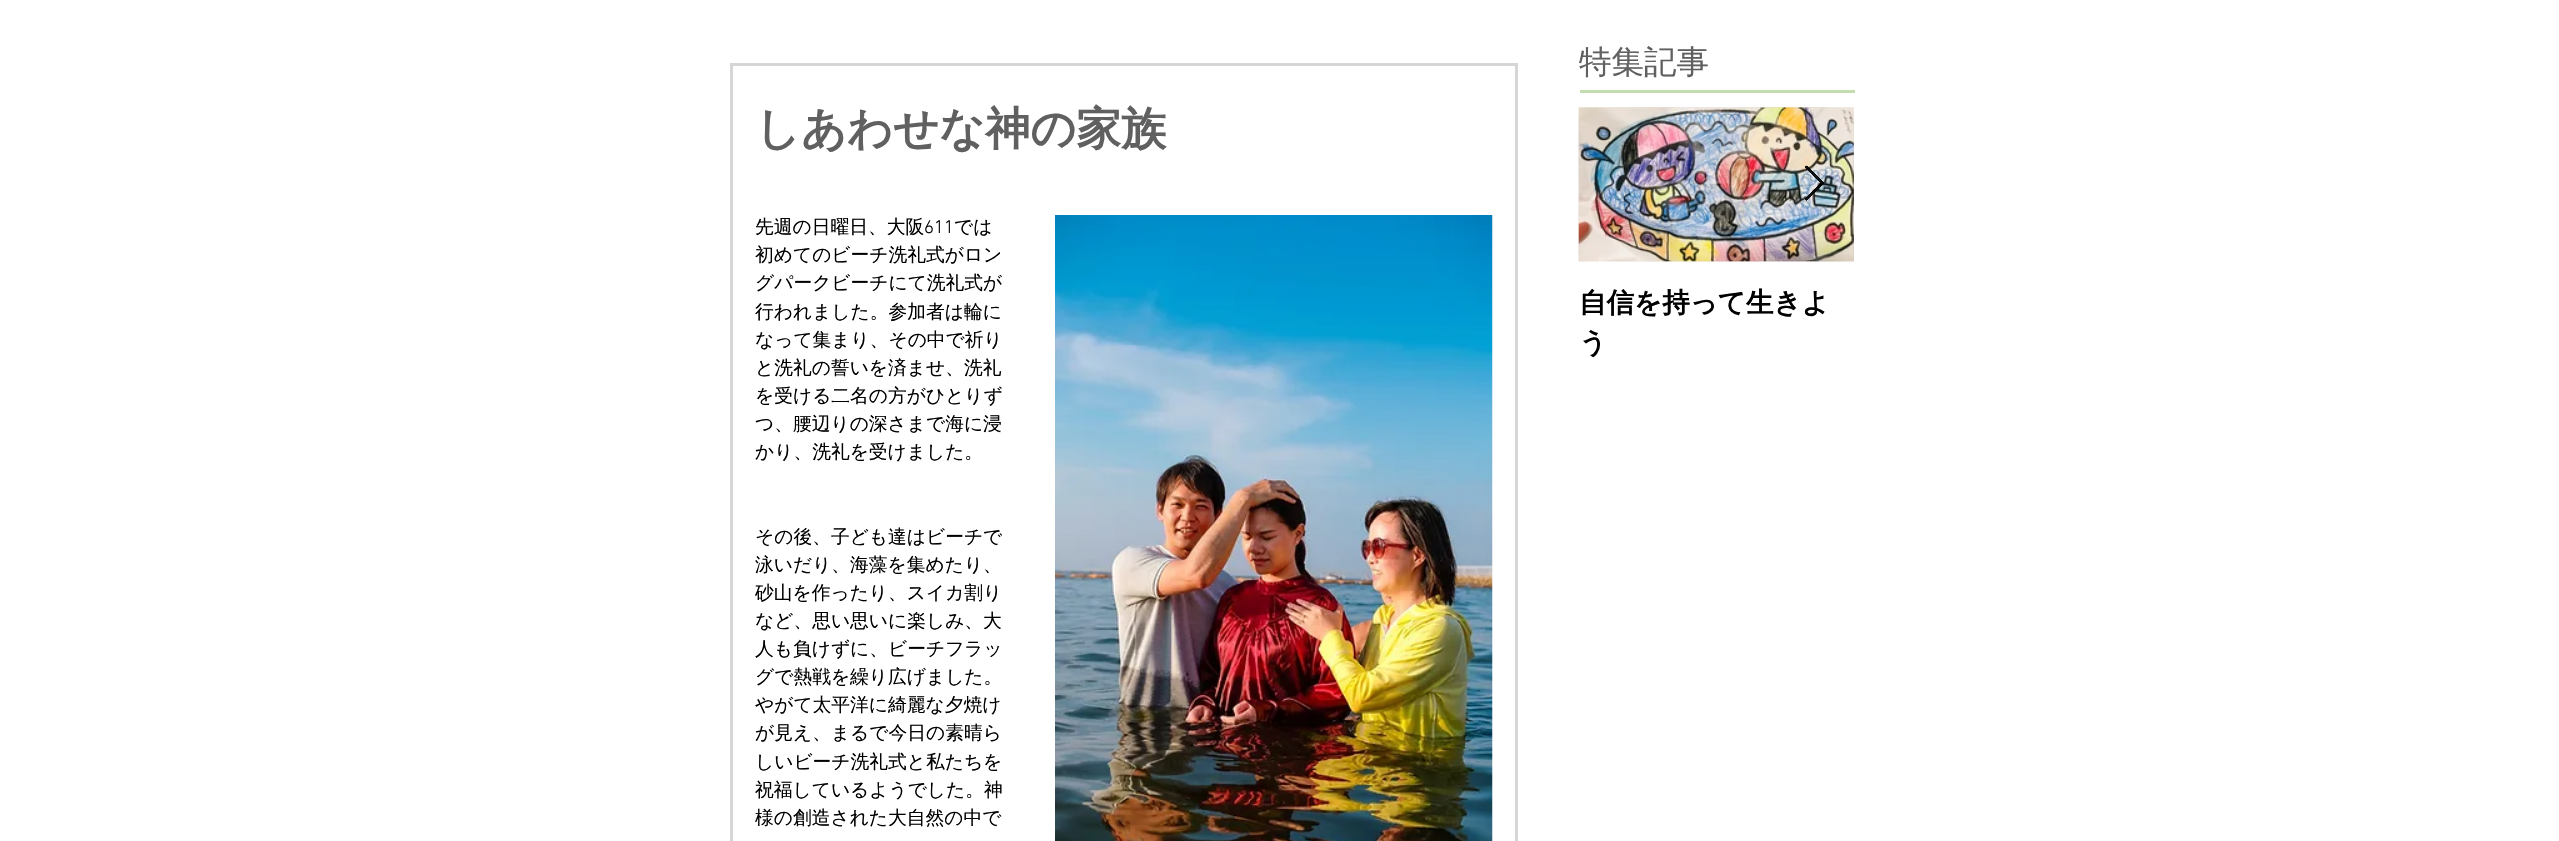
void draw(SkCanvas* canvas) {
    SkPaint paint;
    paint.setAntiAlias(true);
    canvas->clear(0xFFFFFFFF);
    SkFont font1(fontMgr->matchFamilyStyle("WenQuanYi Zen Hei", SkFontStyle(500, SkFontStyle::kNormal_Width, SkFontStyle::kUpright_Slant)), 32.5f);
    font1.setSubpixel(true);
    paint.setColor(0xFF606060);
    canvas->drawString("特集記事", 1579, 73, font1, paint);
    paint.setColor(0xFFC3DDB1);
    canvas->drawRect(SkRect::MakeXYWH(1580, 90, 275, 3), paint);
    paint.setStyle(SkPaint::kStroke_Style);
    paint.setStrokeWidth(3);
    paint.setColor(0xFFD6D6D6);
    canvas->drawRect(SkRect::MakeXYWH(731.5f, 64.5f, 785, 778), paint);
    SkFont font2(fontMgr->matchFamilyStyle("WenQuanYi Zen Hei", SkFontStyle::Bold()), 45);
    font2.setSubpixel(true);
    paint.setStyle(SkPaint::kFill_Style);
    paint.setColor(0xFF606060);
    canvas->drawString("しあわせな神の家族", 755, 144, font2, paint);
    SkFont font3(fontMgr->matchFamilyStyle("WenQuanYi Zen Hei", SkFontStyle(500, SkFontStyle::kNormal_Width, SkFontStyle::kUpright_Slant)), 18.75f);
    font3.setSubpixel(true);
    paint.setColor(0xFF000000);
    canvas->drawString("先週の日曜日、大阪", 755, 233, font3, paint);
    SkFont font4(fontMgr->matchFamilyStyle("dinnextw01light", SkFontStyle(300, SkFontStyle::kNormal_Width, SkFontStyle::kUpright_Slant)), 18.75f);
    font4.setSubpixel(true);
    canvas->drawString("611", 924, 233, font4, paint);
    canvas->drawString("では", 954, 233, font3, paint);
    canvas->drawString("初めてのビーチ洗礼式がロン", 755, 261, font3, paint);
    canvas->drawString("グパークビーチにて洗礼式が", 755, 289, font3, paint);
    canvas->drawString("行われました。参加者は輪に", 755, 318, font3, paint);
    canvas->drawString("なって集まり、その中で祈り", 755, 346, font3, paint);
    canvas->drawString("と洗礼の誓いを済ませ、洗礼", 755, 374, font3, paint);
    canvas->drawString("を受ける二名の方がひとりず", 755, 402, font3, paint);
    canvas->drawString("つ、腰辺りの深さまで海に浸", 755, 430, font3, paint);
    canvas->drawString("かり、洗礼を受けました。", 755, 458, font3, paint);
    canvas->drawImageRect(SkImages::DeferredFromEncodedData(SkData::MakeFromFileName("img1.png")), SkRect::MakeXYWH(1055, 215, 438, 626), SkSamplingOptions());
    canvas->drawString("その後、子ども達はビーチで", 755, 543, font3, paint);
    canvas->drawString("泳いだり、海藻を集めたり、", 755, 571, font3, paint);
    canvas->drawString("砂山を作ったり、スイカ割り", 755, 599, font3, paint);
    canvas->drawString("など、思い思いに楽しみ、大", 755, 627, font3, paint);
    canvas->drawString("人も負けずに、ビーチフラッ", 755, 655, font3, paint);
    canvas->drawString("グで熱戦を繰り広げました。", 755, 683, font3, paint);
    canvas->drawString("やがて太平洋に綺麗な夕焼け", 755, 711, font3, paint);
    canvas->drawString("が見え、まるで今日の素晴ら", 755, 739, font3, paint);
    canvas->drawString("しいビーチ洗礼式と私たちを", 755, 768, font3, paint);
    canvas->drawString("祝福しているようでした。神", 755, 796, font3, paint);
    canvas->drawString("様の創造された大自然の中で", 755, 824, font3, paint);
    canvas->drawImageRect(SkImages::DeferredFromEncodedData(SkData::MakeFromFileName("img2.png")), SkRect::MakeXYWH(1578, 107, 276, 155), SkSamplingOptions());
    canvas->drawImageRect(SkImages::DeferredFromEncodedData(SkData::MakeFromFileName("img3.png")), SkRect::MakeXYWH(1578, 107, 276, 155), SkSamplingOptions());
    paint.setColor(0xE6000000);
    canvas->drawPath(SkPathBuilder().moveTo(1805, 167).lineTo(1806.5f, 165.5f).lineTo(1824, 183).lineTo(1806.5f, 200.5f).lineTo(1805, 199).lineTo(1821, 183).close().detach(), paint);
    canvas->save();
    canvas->clipRect(SkRect::MakeXYWH(1803, 166, 22, 38));
    paint.setStyle(SkPaint::kStroke_Style);
    paint.setStrokeWidth(1);
    canvas->drawPath(SkPathBuilder().moveTo(1805, 167).lineTo(1806.5f, 165.5f).lineTo(1824, 183).lineTo(1806.5f, 200.5f).lineTo(1805, 199).lineTo(1821, 183).close().detach(), paint);
    canvas->restore();
    SkFont font5(fontMgr->matchFamilyStyle("WenQuanYi Zen Hei", SkFontStyle::Bold()), 27.5f);
    font5.setSubpixel(true);
    paint.setStyle(SkPaint::kFill_Style);
    paint.setColor(0xFF000000);
    canvas->drawString("自信を持って生きよ", 1579, 312, font5, paint);
    canvas->drawString("う", 1579, 352, font5, paint);
}
